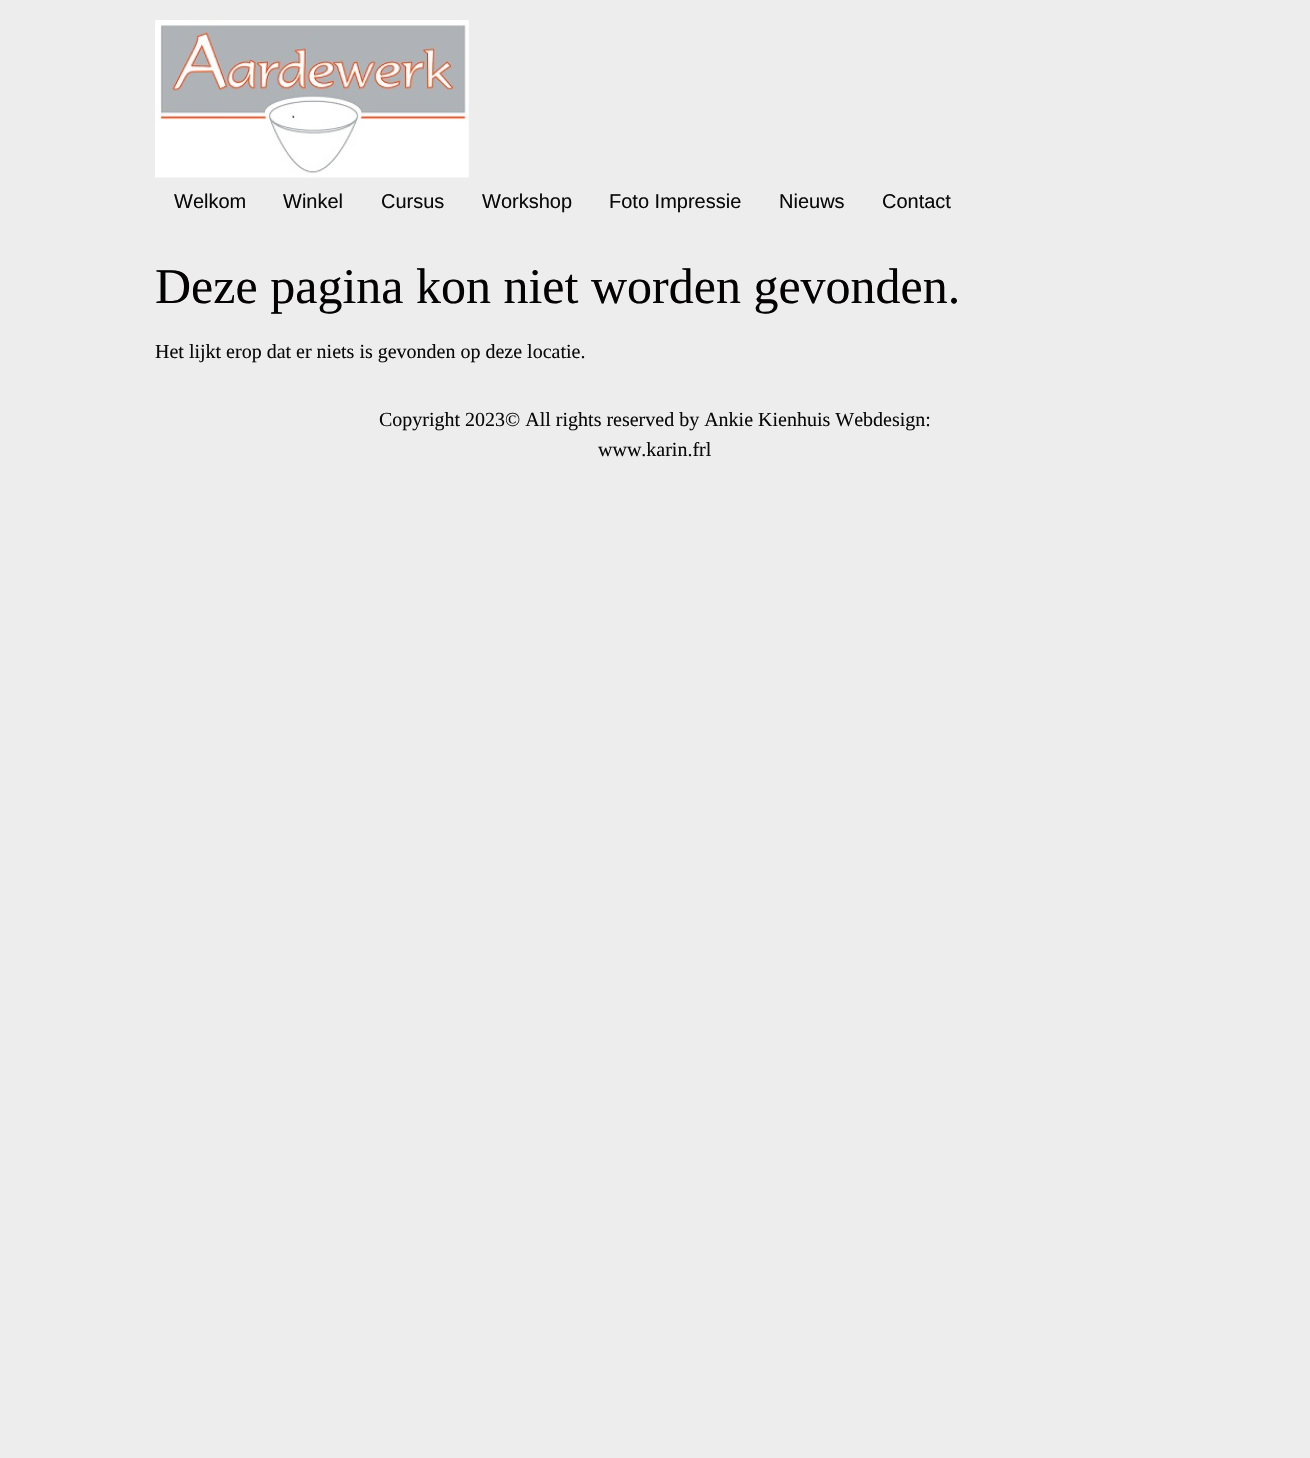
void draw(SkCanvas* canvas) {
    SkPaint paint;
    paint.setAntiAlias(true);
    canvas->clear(0xFFEDEDED);
    canvas->drawImageRect(SkImages::DeferredFromEncodedData(SkData::MakeFromFileName("img1.png")), SkRect::MakeXYWH(155, 20, 314, 158), SkSamplingOptions());
    SkFont font1(fontMgr->matchFamilyStyle("Liberation Sans", SkFontStyle::Normal()), 20);
    font1.setSubpixel(true);
    paint.setColor(0xFF0B0A0A);
    canvas->drawString("Welkom", 174, 208, font1, paint);
    canvas->drawString("Winkel", 283, 208, font1, paint);
    canvas->drawString("Cursus", 381, 208, font1, paint);
    canvas->drawString("Workshop", 482, 208, font1, paint);
    canvas->drawString("Foto Impressie", 609, 208, font1, paint);
    canvas->drawString("Nieuws", 779, 208, font1, paint);
    canvas->drawString("Contact", 882, 208, font1, paint);
    SkFont font2(fontMgr->matchFamilyStyle("Liberation Serif", SkFontStyle::Normal()), 50);
    font2.setSubpixel(true);
    paint.setColor(0xFF040202);
    canvas->drawString("Deze pagina kon niet worden gevonden.", 155, 303, font2, paint);
    SkFont font3(fontMgr->matchFamilyStyle("Liberation Serif", SkFontStyle::Normal()), 20);
    font3.setSubpixel(true);
    paint.setColor(0xFF0B0A0A);
    canvas->drawString("Het lijkt erop dat er niets is gevonden op deze locatie.", 155, 358, font3, paint);
    canvas->drawString("Copyright 2023© All rights reserved by Ankie Kienhuis Webdesign:", 379, 426, font3, paint);
    canvas->drawString("www.karin.frl", 598, 456, font3, paint);
}
